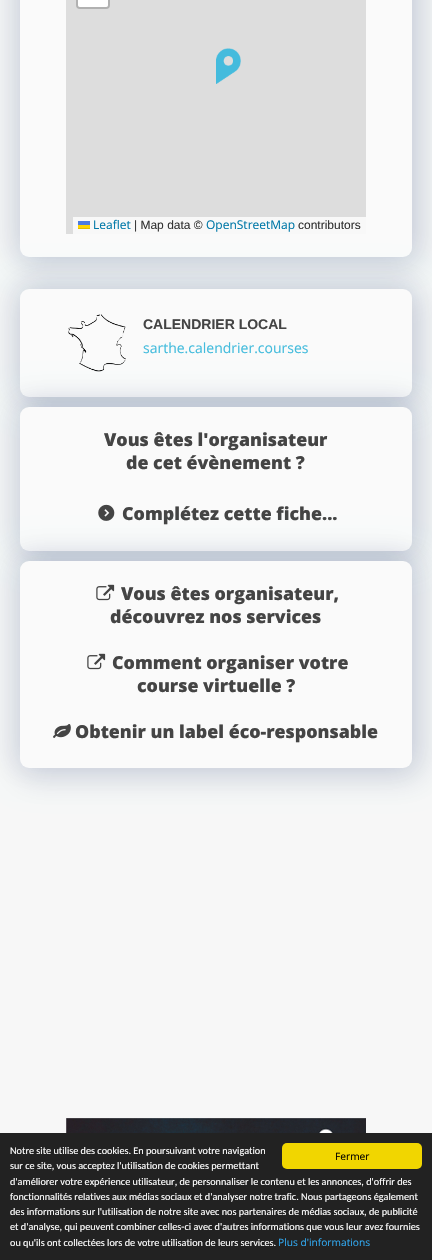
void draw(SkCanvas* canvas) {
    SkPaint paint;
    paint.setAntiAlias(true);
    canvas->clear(0xFFF7F7F7);
    paint.setColor(0x26031E55);
    paint.setMaskFilter(SkMaskFilter::MakeBlur(kNormal_SkBlurStyle, 15));
    canvas->drawRoundRect(SkRect::MakeXYWH(20, -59, 402, 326), 14, 14, paint);
    paint.setMaskFilter(nullptr);
    paint.setColor(0x12031E55);
    paint.setMaskFilter(SkMaskFilter::MakeBlur(kNormal_SkBlurStyle, 15));
    canvas->drawRoundRect(SkRect::MakeXYWH(10, -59, 402, 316), 14, 14, paint);
    paint.setMaskFilter(nullptr);
    paint.setColor(0xFFFAFAFA);
    canvas->drawRoundRect(SkRect::MakeXYWH(20, -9, 392, 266), 9, 9, paint);
    paint.setColor(0xFFDDDDDD);
    canvas->drawRect(SkRect::MakeXYWH(66, 0, 300, 234), paint);
    canvas->drawImageRect(SkImages::DeferredFromEncodedData(SkData::MakeFromFileName("img1.png")), SkRect::MakeXYWH(216, 48, 25, 36), SkSamplingOptions());
    paint.setStyle(SkPaint::kStroke_Style);
    paint.setStrokeWidth(2);
    paint.setColor(0xFFB1B1B1);
    canvas->drawRoundRect(SkRect::MakeXYWH(77, -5, 32, 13), 3, 3, paint);
    paint.setStyle(SkPaint::kFill_Style);
    paint.setColor(0xFFFFFFFF);
    canvas->drawPath(SkPathBuilder().moveTo(78, -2).lineTo(108, -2).lineTo(108, 5).cubicTo(108, 6, 107, 7, 106, 7).lineTo(80, 7).cubicTo(79, 7, 78, 6, 78, 5).close().detach(), paint);
    paint.setColor(0x12031E55);
    paint.setMaskFilter(SkMaskFilter::MakeBlur(kNormal_SkBlurStyle, 15));
    canvas->drawRoundRect(SkRect::MakeXYWH(10, 279, 402, 118), 14, 14, paint);
    paint.setMaskFilter(nullptr);
    paint.setColor(0xFFF8F8F8);
    canvas->drawRect(SkRect::MakeXYWH(73, 217, 293, 17), paint);
    SkFont font1(fontMgr->matchFamilyStyle("Open Sans", SkFontStyle::Normal()), 12);
    font1.setSubpixel(true);
    paint.setColor(0xFF0078A8);
    canvas->drawString("Leaflet", 93, 229, font1, paint);
    paint.setColor(0xFF4C7BE1);
    canvas->drawRect(SkRect::MakeXYWH(78, 221, 12, 4), paint);
    paint.setColor(0xFFFFD500);
    canvas->drawRect(SkRect::MakeXYWH(78, 225, 12, 3), paint);
    paint.setColor(0xFFE0BC00);
    canvas->drawRect(SkRect::MakeXYWH(78, 228, 12, 1), paint);
    SkFont font2(fontMgr->matchFamilyStyle("Liberation Sans", SkFontStyle::Normal()), 12);
    font2.setSubpixel(true);
    paint.setColor(0xFF333333);
    canvas->drawString("| Map data ©", 134, 229, font2, paint);
    paint.setColor(0xFF0078A8);
    canvas->drawString("OpenStreetMap", 206, 229, font1, paint);
    paint.setColor(0xFF333333);
    canvas->drawString("contributors", 298, 229, font2, paint);
    paint.setColor(0x26031E55);
    paint.setMaskFilter(SkMaskFilter::MakeBlur(kNormal_SkBlurStyle, 15));
    canvas->drawRoundRect(SkRect::MakeXYWH(20, 289, 402, 118), 14, 14, paint);
    paint.setMaskFilter(nullptr);
    paint.setColor(0xFFFAFAFA);
    canvas->drawRoundRect(SkRect::MakeXYWH(20, 289, 392, 108), 9, 9, paint);
    canvas->drawImageRect(SkImages::DeferredFromEncodedData(SkData::MakeFromFileName("img2.png")), SkRect::MakeXYWH(68, 314, 58, 58), SkSamplingOptions());
    SkFont font3(fontMgr->matchFamilyStyle("Liberation Sans", SkFontStyle::Bold()), 14);
    font3.setSubpixel(true);
    paint.setColor(0xFF444444);
    canvas->drawString("CALENDRIER LOCAL", 143, 329, font3, paint);
    SkFont font4(fontMgr->matchFamilyStyle("Open Sans", SkFontStyle::Normal()), 14);
    font4.setSubpixel(true);
    paint.setColor(0xFF44BCDD);
    canvas->drawString("sarthe.calendrier.courses", 143, 353, font4, paint);
    paint.setColor(0x26031E55);
    paint.setMaskFilter(SkMaskFilter::MakeBlur(kNormal_SkBlurStyle, 15));
    canvas->drawRoundRect(SkRect::MakeXYWH(20, 407, 402, 154), 14, 14, paint);
    paint.setMaskFilter(nullptr);
    paint.setColor(0x12031E55);
    paint.setMaskFilter(SkMaskFilter::MakeBlur(kNormal_SkBlurStyle, 15));
    canvas->drawRoundRect(SkRect::MakeXYWH(10, 397, 402, 154), 14, 14, paint);
    paint.setMaskFilter(nullptr);
    paint.setColor(0xFFFAFAFA);
    canvas->drawRoundRect(SkRect::MakeXYWH(20, 407, 392, 144), 9, 9, paint);
    SkFont font5(fontMgr->matchFamilyStyle("Open Sans", SkFontStyle(800, SkFontStyle::kNormal_Width, SkFontStyle::kUpright_Slant)), 17.8f);
    font5.setSubpixel(true);
    paint.setColor(0xFF444444);
    canvas->drawString("Vous êtes l'organisateur", 104, 446, font5, paint);
    canvas->drawString("de cet évènement ?", 126, 469, font5, paint);
    canvas->drawImageRect(SkImages::DeferredFromEncodedData(SkData::MakeFromFileName("img3.png")), SkRect::MakeXYWH(98, 504, 17, 17), SkSamplingOptions());
    canvas->drawString("Complétez cette fiche...", 122, 520, font5, paint);
    paint.setColor(0x26031E55);
    paint.setMaskFilter(SkMaskFilter::MakeBlur(kNormal_SkBlurStyle, 15));
    canvas->drawRoundRect(SkRect::MakeXYWH(20, 561, 402, 217), 14, 14, paint);
    paint.setMaskFilter(nullptr);
    paint.setColor(0x12031E55);
    paint.setMaskFilter(SkMaskFilter::MakeBlur(kNormal_SkBlurStyle, 15));
    canvas->drawRoundRect(SkRect::MakeXYWH(10, 551, 402, 217), 14, 14, paint);
    paint.setMaskFilter(nullptr);
    paint.setColor(0xFFFAFAFA);
    canvas->drawRoundRect(SkRect::MakeXYWH(20, 561, 392, 207), 9, 9, paint);
    canvas->drawImageRect(SkImages::DeferredFromEncodedData(SkData::MakeFromFileName("img4.png")), SkRect::MakeXYWH(96, 584, 19, 17), SkSamplingOptions());
    paint.setColor(0xFF444444);
    canvas->drawString("Vous êtes organisateur,", 121, 600, font5, paint);
    canvas->drawString("découvrez nos services", 110, 623, font5, paint);
    canvas->drawImageRect(SkImages::DeferredFromEncodedData(SkData::MakeFromFileName("img4.png")), SkRect::MakeXYWH(87, 653, 19, 17), SkSamplingOptions());
    canvas->drawString("Comment organiser votre", 112, 669, font5, paint);
    canvas->drawString("course virtuelle ?", 137, 692, font5, paint);
    canvas->drawImageRect(SkImages::DeferredFromEncodedData(SkData::MakeFromFileName("img5.png")), SkRect::MakeXYWH(53, 724, 18, 14), SkSamplingOptions());
    canvas->drawString("Obtenir un label éco-responsable", 75, 738, font5, paint);
    canvas->drawImageRect(SkImages::DeferredFromEncodedData(SkData::MakeFromFileName("img6.png")), SkRect::MakeXYWH(66, 1118, 300, 15), SkSamplingOptions());
    paint.setColor(0xFF222222);
    canvas->drawRect(SkRect::MakeXYWH(0, 1133, 432, 127), paint);
    SkFont font6(fontMgr->matchFamilyStyle("Carlito", SkFontStyle::Normal()), 10.2f);
    font6.setSubpixel(true);
    paint.setColor(0xFFFFFFFF);
    canvas->drawString("Notre site utilise des cookies. En poursuivant votre navigation", 10, 1154, font6, paint);
    canvas->drawString("sur ce site, vous acceptez l'utilisation de cookies permettant", 10, 1169, font6, paint);
    canvas->drawString("d'améliorer votre expérience utilisateur, de personnaliser le contenu et les annonces, d'offrir des", 10, 1185, font6, paint);
    canvas->drawString("fonctionnalités relatives aux médias sociaux et d'analyser notre trafic. Nous partageons également", 10, 1200, font6, paint);
    canvas->drawString("des informations sur l'utilisation de notre site avec nos partenaires de médias sociaux, de publicité", 10, 1215, font6, paint);
    canvas->drawString("et d'analyse, qui peuvent combiner celles-ci avec d'autres informations que vous leur avez fournies", 10, 1230, font6, paint);
    canvas->drawString("ou qu'ils ont collectées lors de votre utilisation de leurs services.", 10, 1246, font6, paint);
    SkFont font7(fontMgr->matchFamilyStyle("Open Sans", SkFontStyle::Normal()), 10.2f);
    font7.setSubpixel(true);
    paint.setColor(0xFF31A8F0);
    canvas->drawString("Plus d'informations", 278, 1246, font7, paint);
    paint.setColor(0xFFF1D600);
    canvas->drawRoundRect(SkRect::MakeXYWH(282, 1143, 140, 26), 5, 5, paint);
    paint.setColor(0xFF000000);
    canvas->drawString("Fermer", 335, 1160, font7, paint);
}
